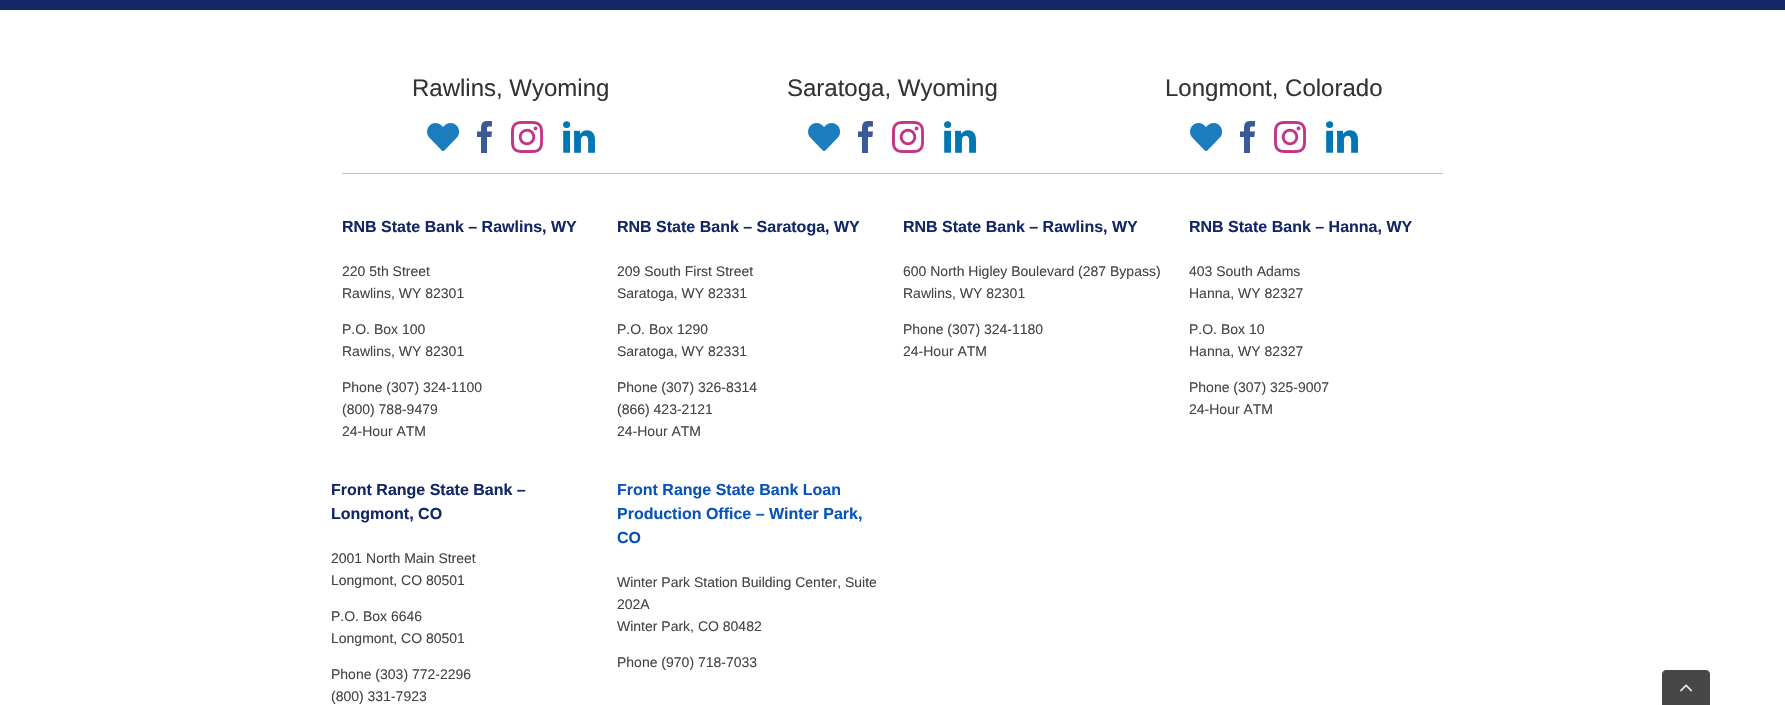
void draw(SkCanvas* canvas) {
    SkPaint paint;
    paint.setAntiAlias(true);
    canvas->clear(0xFFFFFFFF);
    paint.setColor(0xFF122766);
    canvas->drawRect(SkRect::MakeXYWH(0, 0, 1785, 10), paint);
    SkFont font1(fontMgr->matchFamilyStyle("Liberation Sans", SkFontStyle::Normal()), 24);
    font1.setSubpixel(true);
    paint.setColor(0xFF333333);
    canvas->drawString("Rawlins, Wyoming", 412, 96, font1, paint);
    canvas->drawImageRect(SkImages::DeferredFromEncodedData(SkData::MakeFromFileName("img1.png")), SkRect::MakeXYWH(427, 123, 33, 28), SkSamplingOptions());
    canvas->drawImageRect(SkImages::DeferredFromEncodedData(SkData::MakeFromFileName("img2.png")), SkRect::MakeXYWH(477, 121, 15, 32), SkSamplingOptions());
    canvas->drawImageRect(SkImages::DeferredFromEncodedData(SkData::MakeFromFileName("img3.png")), SkRect::MakeXYWH(511, 121, 32, 32), SkSamplingOptions());
    canvas->drawImageRect(SkImages::DeferredFromEncodedData(SkData::MakeFromFileName("img4.png")), SkRect::MakeXYWH(563, 121, 32, 32), SkSamplingOptions());
    canvas->drawString("Saratoga, Wyoming", 787, 96, font1, paint);
    canvas->drawImageRect(SkImages::DeferredFromEncodedData(SkData::MakeFromFileName("img1.png")), SkRect::MakeXYWH(808, 123, 33, 28), SkSamplingOptions());
    canvas->drawImageRect(SkImages::DeferredFromEncodedData(SkData::MakeFromFileName("img2.png")), SkRect::MakeXYWH(858, 121, 15, 32), SkSamplingOptions());
    canvas->drawImageRect(SkImages::DeferredFromEncodedData(SkData::MakeFromFileName("img3.png")), SkRect::MakeXYWH(892, 121, 32, 32), SkSamplingOptions());
    canvas->drawImageRect(SkImages::DeferredFromEncodedData(SkData::MakeFromFileName("img4.png")), SkRect::MakeXYWH(944, 121, 32, 32), SkSamplingOptions());
    canvas->drawString("Longmont, Colorado", 1165, 96, font1, paint);
    canvas->drawImageRect(SkImages::DeferredFromEncodedData(SkData::MakeFromFileName("img1.png")), SkRect::MakeXYWH(1190, 123, 33, 28), SkSamplingOptions());
    canvas->drawImageRect(SkImages::DeferredFromEncodedData(SkData::MakeFromFileName("img2.png")), SkRect::MakeXYWH(1240, 121, 15, 32), SkSamplingOptions());
    canvas->drawImageRect(SkImages::DeferredFromEncodedData(SkData::MakeFromFileName("img3.png")), SkRect::MakeXYWH(1274, 121, 32, 32), SkSamplingOptions());
    canvas->drawImageRect(SkImages::DeferredFromEncodedData(SkData::MakeFromFileName("img4.png")), SkRect::MakeXYWH(1326, 121, 32, 32), SkSamplingOptions());
    paint.setColor(0xFFC1BFBF);
    canvas->drawRect(SkRect::MakeXYWH(342, 173, 1101, 1), paint);
    SkFont font2(fontMgr->matchFamilyStyle("Liberation Sans", SkFontStyle::Bold()), 16);
    font2.setSubpixel(true);
    paint.setColor(0xFF122766);
    canvas->drawString("RNB State Bank – Rawlins, WY", 342, 232, font2, paint);
    SkFont font3(fontMgr->matchFamilyStyle("Liberation Sans", SkFontStyle::Normal()), 14);
    font3.setSubpixel(true);
    paint.setColor(0xFF444444);
    canvas->drawString("220 5th Street", 342, 276, font3, paint);
    canvas->drawString("Rawlins, WY 82301", 342, 298, font3, paint);
    canvas->drawString("P.O. Box 100", 342, 334, font3, paint);
    canvas->drawString("Rawlins, WY 82301", 342, 356, font3, paint);
    canvas->drawString("Phone (307) 324-1100", 342, 392, font3, paint);
    canvas->drawString("(800) 788-9479", 342, 414, font3, paint);
    canvas->drawString("24-Hour ATM", 342, 436, font3, paint);
    paint.setColor(0xFF122766);
    canvas->drawString("RNB State Bank – Saratoga, WY", 617, 232, font2, paint);
    paint.setColor(0xFF444444);
    canvas->drawString("209 South First Street", 617, 276, font3, paint);
    canvas->drawString("Saratoga, WY 82331", 617, 298, font3, paint);
    canvas->drawString("P.O. Box 1290", 617, 334, font3, paint);
    canvas->drawString("Saratoga, WY 82331", 617, 356, font3, paint);
    canvas->drawString("Phone (307) 326-8314", 617, 392, font3, paint);
    canvas->drawString("(866) 423-2121", 617, 414, font3, paint);
    canvas->drawString("24-Hour ATM", 617, 436, font3, paint);
    paint.setColor(0xFF122766);
    canvas->drawString("RNB State Bank – Rawlins, WY", 903, 232, font2, paint);
    paint.setColor(0xFF444444);
    canvas->drawString("600 North Higley Boulevard (287 Bypass)", 903, 276, font3, paint);
    canvas->drawString("Rawlins, WY 82301", 903, 298, font3, paint);
    canvas->drawString("Phone (307) 324-1180", 903, 334, font3, paint);
    canvas->drawString("24-Hour ATM", 903, 356, font3, paint);
    paint.setColor(0xFF122766);
    canvas->drawString("RNB State Bank – Hanna, WY", 1189, 232, font2, paint);
    paint.setColor(0xFF444444);
    canvas->drawString("403 South Adams", 1189, 276, font3, paint);
    canvas->drawString("Hanna, WY 82327", 1189, 298, font3, paint);
    canvas->drawString("P.O. Box 10", 1189, 334, font3, paint);
    canvas->drawString("Hanna, WY 82327", 1189, 356, font3, paint);
    canvas->drawString("Phone (307) 325-9007", 1189, 392, font3, paint);
    canvas->drawString("24-Hour ATM", 1189, 414, font3, paint);
    paint.setColor(0xFF122766);
    canvas->drawString("Front Range State Bank –", 331, 495, font2, paint);
    canvas->drawString("Longmont, CO", 331, 519, font2, paint);
    paint.setColor(0xFF444444);
    canvas->drawString("2001 North Main Street", 331, 563, font3, paint);
    canvas->drawString("Longmont, CO 80501", 331, 585, font3, paint);
    canvas->drawString("P.O. Box 6646", 331, 621, font3, paint);
    canvas->drawString("Longmont, CO 80501", 331, 643, font3, paint);
    canvas->drawString("Phone (303) 772-2296", 331, 679, font3, paint);
    canvas->drawString("(800) 331-7923", 331, 701, font3, paint);
    paint.setColor(0xFF0753B7);
    canvas->drawString("Front Range State Bank Loan", 617, 495, font2, paint);
    canvas->drawString("Production Office – Winter Park,", 617, 519, font2, paint);
    canvas->drawString("CO", 617, 543, font2, paint);
    paint.setColor(0xFF444444);
    canvas->drawString("Winter Park Station Building Center, Suite", 617, 587, font3, paint);
    canvas->drawString("202A", 617, 609, font3, paint);
    canvas->drawString("Winter Park, CO 80482", 617, 631, font3, paint);
    canvas->drawString("Phone (970) 718-7033", 617, 667, font3, paint);
    paint.setColor(0xFF474747);
    canvas->drawPath(SkPathBuilder().moveTo(1666, 670).lineTo(1706, 670).cubicTo(1708, 670, 1710, 672, 1710, 674).lineTo(1710, 705).lineTo(1662, 705).lineTo(1662, 674).cubicTo(1662, 672, 1664, 670, 1666, 670).close().detach(), paint);
    canvas->drawImageRect(SkImages::DeferredFromEncodedData(SkData::MakeFromFileName("img5.png")), SkRect::MakeXYWH(1680, 684, 13, 8), SkSamplingOptions());
}
